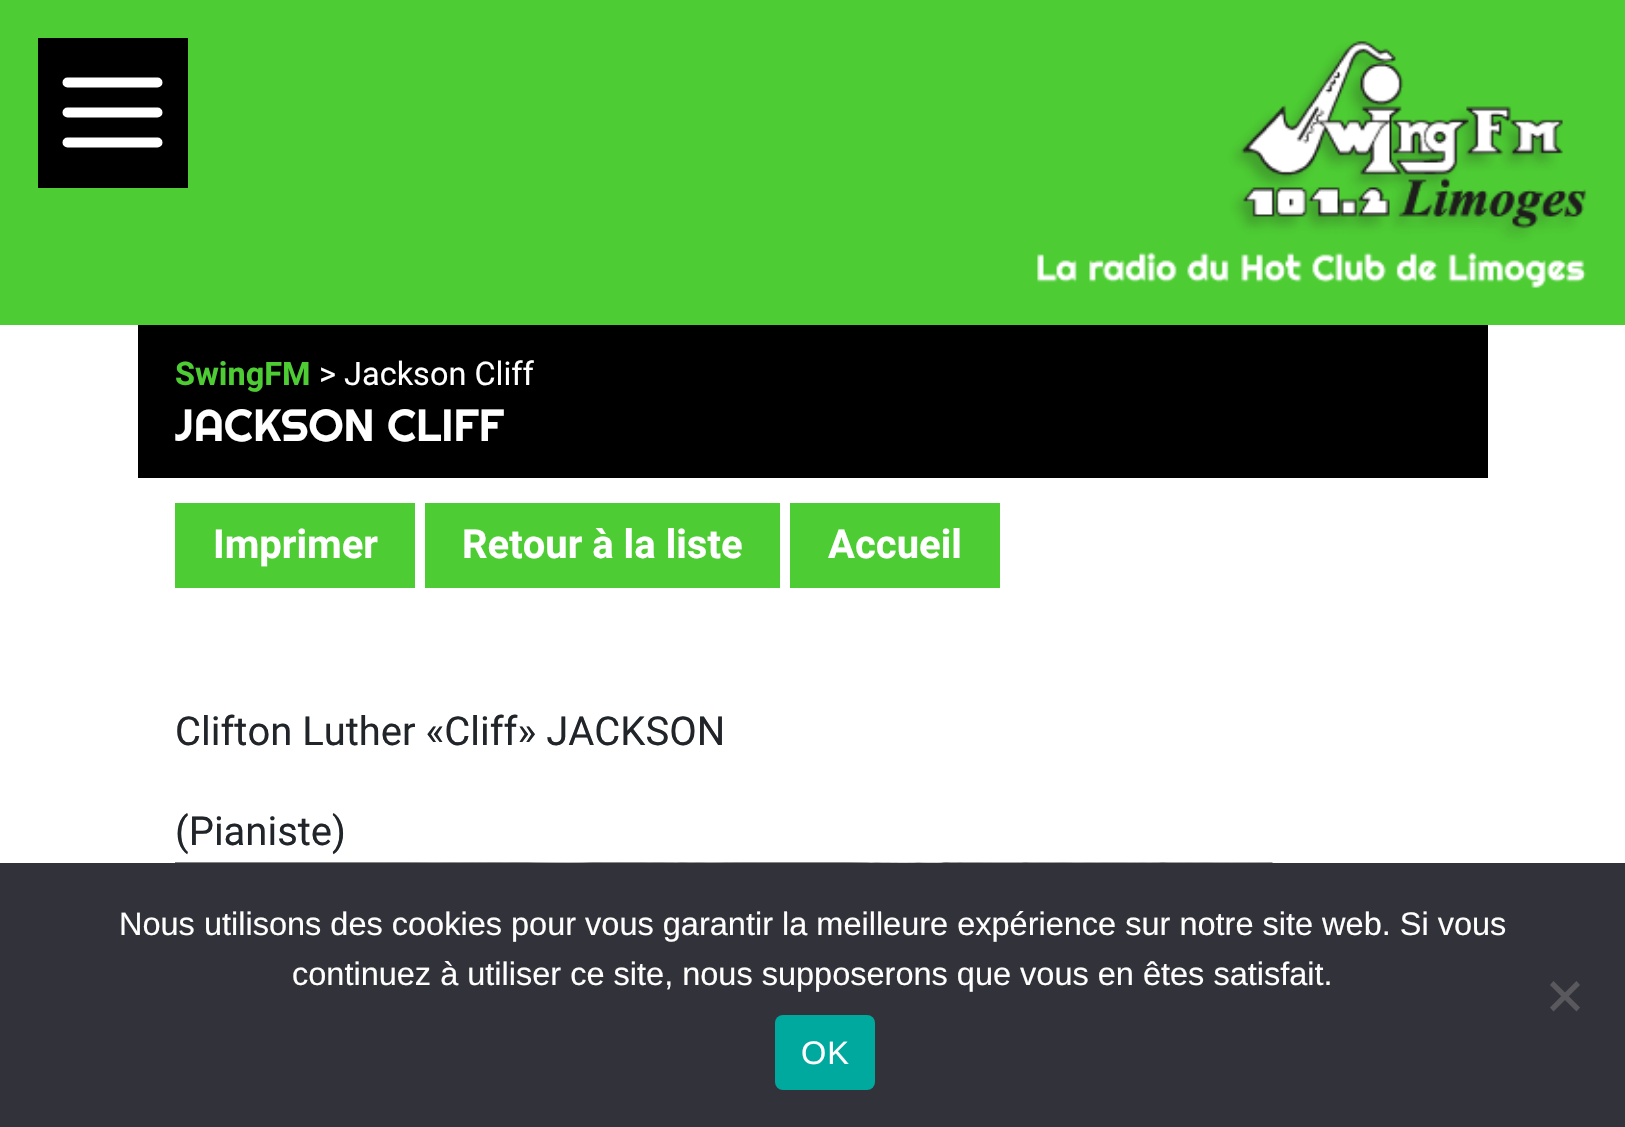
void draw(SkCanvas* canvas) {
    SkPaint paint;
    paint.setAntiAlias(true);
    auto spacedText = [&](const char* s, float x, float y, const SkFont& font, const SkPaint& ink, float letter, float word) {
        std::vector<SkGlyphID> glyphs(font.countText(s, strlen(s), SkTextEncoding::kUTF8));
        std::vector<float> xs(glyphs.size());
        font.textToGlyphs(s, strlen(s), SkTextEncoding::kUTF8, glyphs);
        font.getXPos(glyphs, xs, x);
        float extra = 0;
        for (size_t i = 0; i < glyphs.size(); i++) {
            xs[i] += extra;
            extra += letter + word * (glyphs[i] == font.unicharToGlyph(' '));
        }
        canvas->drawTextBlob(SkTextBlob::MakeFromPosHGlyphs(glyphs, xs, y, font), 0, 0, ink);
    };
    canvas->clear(0xFFFFFFFF);
    paint.setColor(0xFF4DCD33);
    canvas->drawRect(SkRect::MakeXYWH(0, 0, 1625, 325), paint);
    paint.setColor(0xFF000000);
    canvas->drawRect(SkRect::MakeXYWH(38, 38, 150, 150), paint);
    paint.setStyle(SkPaint::kStroke_Style);
    paint.setStrokeWidth(10);
    paint.setStrokeCap(SkPaint::kRound_Cap);
    paint.setColor(0xFFFFFFFF);
    canvas->drawPath(SkPathBuilder().moveTo(67.5f, 82.5f).lineTo(157.5f, 82.5f).moveTo(67.5f, 112.5f).lineTo(157.5f, 112.5f).moveTo(67.5f, 142.5f).lineTo(157.5f, 142.5f).detach(), paint);
    canvas->drawImageRect(SkImages::DeferredFromEncodedData(SkData::MakeFromFileName("img1.png")), SkRect::MakeXYWH(1037, 41, 550, 247), SkSamplingOptions());
    paint.setStyle(SkPaint::kFill_Style);
    paint.setColor(0xFF000000);
    canvas->drawRect(SkRect::MakeXYWH(138, 325, 1350, 153), paint);
    SkFont font1(fontMgr->matchFamilyStyle("Roboto", SkFontStyle::Bold()), 32.5f);
    font1.setSubpixel(true);
    paint.setColor(0xFF4DCD33);
    canvas->drawString("SwingFM", 175, 385, font1, paint);
    SkFont font2(fontMgr->matchFamilyStyle("Roboto", SkFontStyle::Normal()), 32.5f);
    font2.setSubpixel(true);
    paint.setColor(0xFFFFFFFF);
    canvas->drawString("> Jackson Cliff", 319, 385, font2, paint);
    SkFont font3(fontMgr->matchFamilyStyle("Righteous", SkFontStyle::Normal()), 45);
    font3.setSubpixel(true);
    canvas->drawString("JACKSON CLIFF", 175, 441, font3, paint);
    paint.setColor(0xFF4DCD33);
    canvas->drawRect(SkRect::MakeXYWH(175, 503, 240, 85), paint);
    SkFont font4(fontMgr->matchFamilyStyle("Roboto", SkFontStyle::Bold()), 40);
    font4.setSubpixel(true);
    paint.setColor(0xFFFFFFFF);
    canvas->drawString("Imprimer", 213, 558, font4, paint);
    paint.setColor(0xFF4DCD33);
    canvas->drawRect(SkRect::MakeXYWH(425, 503, 355, 85), paint);
    paint.setColor(0xFFFFFFFF);
    canvas->drawString("Retour à la liste", 462, 558, font4, paint);
    paint.setColor(0xFF4DCD33);
    canvas->drawRect(SkRect::MakeXYWH(790, 503, 210, 85), paint);
    paint.setColor(0xFFFFFFFF);
    canvas->drawString("Accueil", 828, 558, font4, paint);
    SkFont font5(fontMgr->matchFamilyStyle("Roboto", SkFontStyle::Normal()), 40);
    font5.setSubpixel(true);
    paint.setColor(0xFF212529);
    canvas->drawString("Clifton Luther «Cliff» JACKSON", 175, 745, font5, paint);
    canvas->drawString("(Pianiste)", 175, 845, font5, paint);
    canvas->drawImageRect(SkImages::DeferredFromEncodedData(SkData::MakeFromFileName("img2.png")), SkRect::MakeXYWH(175, 862, 1098, 1), SkSamplingOptions());
    paint.setColor(0xFF32323A);
    canvas->drawRect(SkRect::MakeXYWH(0, 863, 1625, 264), paint);
    SkFont font6(fontMgr->matchFamilyStyle("Liberation Sans", SkFontStyle::Normal()), 32.5f);
    font6.setSubpixel(true);
    paint.setColor(0xFFFFFFFF);
    canvas->drawString("Nous utilisons des cookies pour vous garantir la meilleure expérience sur notre site web. Si vous", 119, 935, font6, paint);
    canvas->drawString("continuez à utiliser ce site, nous supposerons que vous en êtes satisfait.", 292, 985, font6, paint);
    paint.setColor(0xFF59595D);
    canvas->drawPath(SkPathBuilder().moveTo(1576.5f, 981).lineTo(1580, 985).lineTo(1553.5f, 1011.5f).lineTo(1550, 1007.5f).close().detach(), paint);
    canvas->drawPath(SkPathBuilder().moveTo(1550, 985).lineTo(1553.5f, 981).lineTo(1580, 1007.5f).lineTo(1576.5f, 1011.5f).close().detach(), paint);
    paint.setColor(0xFF00A99D);
    canvas->drawRoundRect(SkRect::MakeXYWH(775, 1015, 100, 75), 8, 8, paint);
    paint.setColor(0xFFFFFFFF);
    spacedText("OK", 801, 1064, font6, paint, 1, 0);
}
